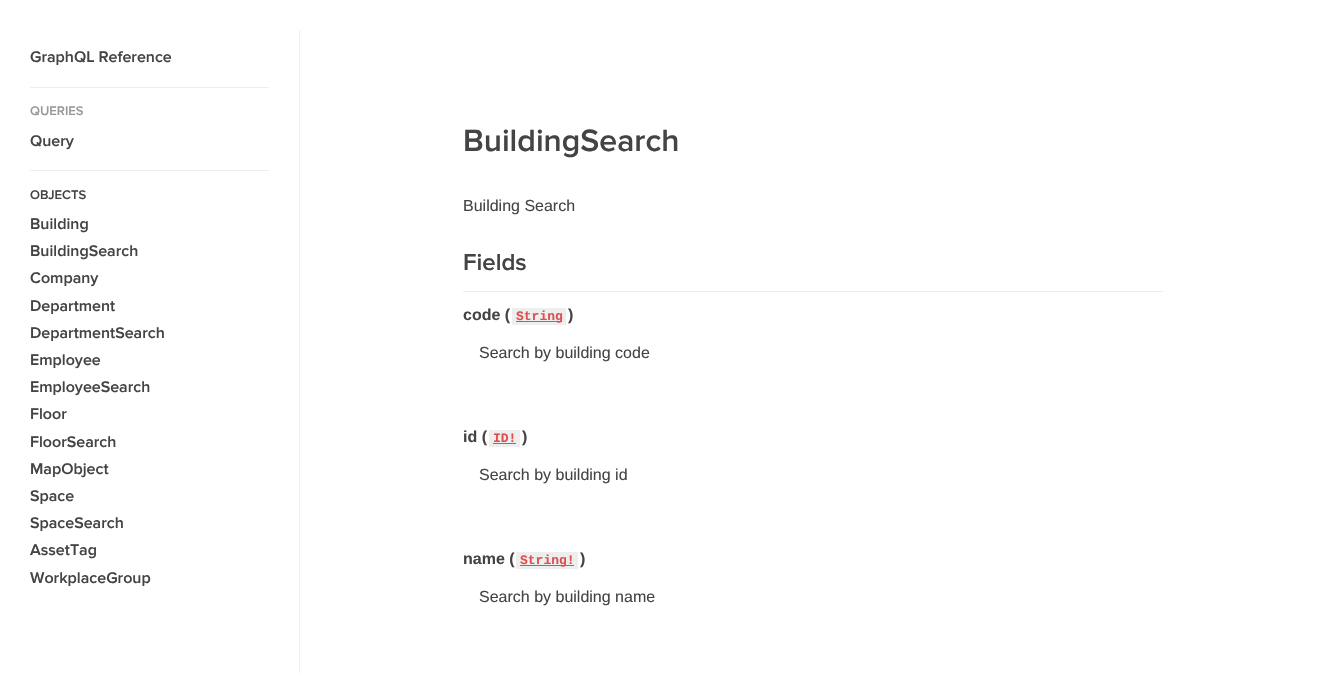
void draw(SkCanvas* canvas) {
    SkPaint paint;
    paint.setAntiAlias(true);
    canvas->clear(0xFFFFFFFF);
    paint.setColor(0xFFEEEEEE);
    canvas->drawRect(SkRect::MakeXYWH(299, 30, 1, 643), paint);
    SkFont font1(fontMgr->matchFamilyStyle("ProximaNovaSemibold", SkFontStyle(600, SkFontStyle::kNormal_Width, SkFontStyle::kUpright_Slant)), 16);
    font1.setSubpixel(true);
    paint.setColor(0xFF444444);
    canvas->drawString("GraphQL Reference", 30, 62, font1, paint);
    paint.setColor(0xFFEEEEEE);
    canvas->drawRect(SkRect::MakeXYWH(30, 87, 239, 1), paint);
    SkFont font2(fontMgr->matchFamilyStyle("ProximaNovaSemibold", SkFontStyle(600, SkFontStyle::kNormal_Width, SkFontStyle::kUpright_Slant)), 13);
    font2.setSubpixel(true);
    paint.setColor(0xFF999999);
    canvas->drawString("QUERIES", 30, 115, font2, paint);
    paint.setColor(0xFF444444);
    canvas->drawString("Query", 30, 146, font1, paint);
    paint.setColor(0xFFEEEEEE);
    canvas->drawRect(SkRect::MakeXYWH(30, 170, 239, 1), paint);
    paint.setColor(0xFF444444);
    canvas->drawString("OBJECTS", 30, 199, font2, paint);
    canvas->drawString("Building", 30, 229, font1, paint);
    canvas->drawString("BuildingSearch", 30, 256, font1, paint);
    canvas->drawString("Company", 30, 283, font1, paint);
    canvas->drawString("Department", 30, 311, font1, paint);
    canvas->drawString("DepartmentSearch", 30, 338, font1, paint);
    canvas->drawString("Employee", 30, 365, font1, paint);
    canvas->drawString("EmployeeSearch", 30, 392, font1, paint);
    canvas->drawString("Floor", 30, 419, font1, paint);
    canvas->drawString("FloorSearch", 30, 447, font1, paint);
    canvas->drawString("MapObject", 30, 474, font1, paint);
    canvas->drawString("Space", 30, 501, font1, paint);
    canvas->drawString("SpaceSearch", 30, 528, font1, paint);
    canvas->drawString("AssetTag", 30, 555, font1, paint);
    canvas->drawString("WorkplaceGroup", 30, 583, font1, paint);
    SkFont font3(fontMgr->matchFamilyStyle("ProximaNovaSemibold", SkFontStyle(600, SkFontStyle::kNormal_Width, SkFontStyle::kUpright_Slant)), 32);
    font3.setSubpixel(true);
    canvas->drawString("BuildingSearch", 463, 151, font3, paint);
    SkFont font4(fontMgr->matchFamilyStyle("Liberation Sans", SkFontStyle::Normal()), 16);
    font4.setSubpixel(true);
    canvas->drawString("Building Search", 463, 211, font4, paint);
    paint.setColor(0xFFEEEEEE);
    canvas->drawRect(SkRect::MakeXYWH(463, 291, 700, 1), paint);
    SkFont font5(fontMgr->matchFamilyStyle("ProximaNovaSemibold", SkFontStyle(600, SkFontStyle::kNormal_Width, SkFontStyle::kUpright_Slant)), 24);
    font5.setSubpixel(true);
    paint.setColor(0xFF444444);
    canvas->drawString("Fields", 463, 270, font5, paint);
    SkFont font6(fontMgr->matchFamilyStyle("Liberation Sans", SkFontStyle::Bold()), 16);
    font6.setSubpixel(true);
    canvas->drawString("code (", 463, 320, font6, paint);
    paint.setColor(0xFFEEEEEE);
    canvas->drawRect(SkRect::MakeXYWH(512, 308, 54, 17), paint);
    paint.setColor(0xFFDE4F4F);
    canvas->drawRect(SkRect::MakeXYWH(516, 321, 46, 1), paint);
    SkFont font7(fontMgr->matchFamilyStyle("Liberation Mono", SkFontStyle::Bold()), 13);
    font7.setSubpixel(true);
    canvas->drawString("String", 516, 320, font7, paint);
    paint.setColor(0xFF444444);
    canvas->drawString(")", 568, 320, font6, paint);
    canvas->drawString("Search by building code", 479, 358, font4, paint);
    canvas->drawString("id (", 463, 442, font6, paint);
    paint.setColor(0xFFEEEEEE);
    canvas->drawRect(SkRect::MakeXYWH(489, 430, 31, 17), paint);
    paint.setColor(0xFFDE4F4F);
    canvas->drawString("ID!", 493, 442, font7, paint);
    canvas->drawRect(SkRect::MakeXYWH(493, 443, 23, 1), paint);
    paint.setColor(0xFF444444);
    canvas->drawString(")", 522, 442, font6, paint);
    canvas->drawString("Search by building id", 479, 480, font4, paint);
    canvas->drawString("name (", 463, 564, font6, paint);
    paint.setColor(0xFFEEEEEE);
    canvas->drawRect(SkRect::MakeXYWH(516, 552, 62, 17), paint);
    paint.setColor(0xFFDE4F4F);
    canvas->drawRect(SkRect::MakeXYWH(520, 565, 54, 1), paint);
    canvas->drawString("String!", 520, 564, font7, paint);
    paint.setColor(0xFF444444);
    canvas->drawString(")", 580, 564, font6, paint);
    canvas->drawString("Search by building name", 479, 602, font4, paint);
}
